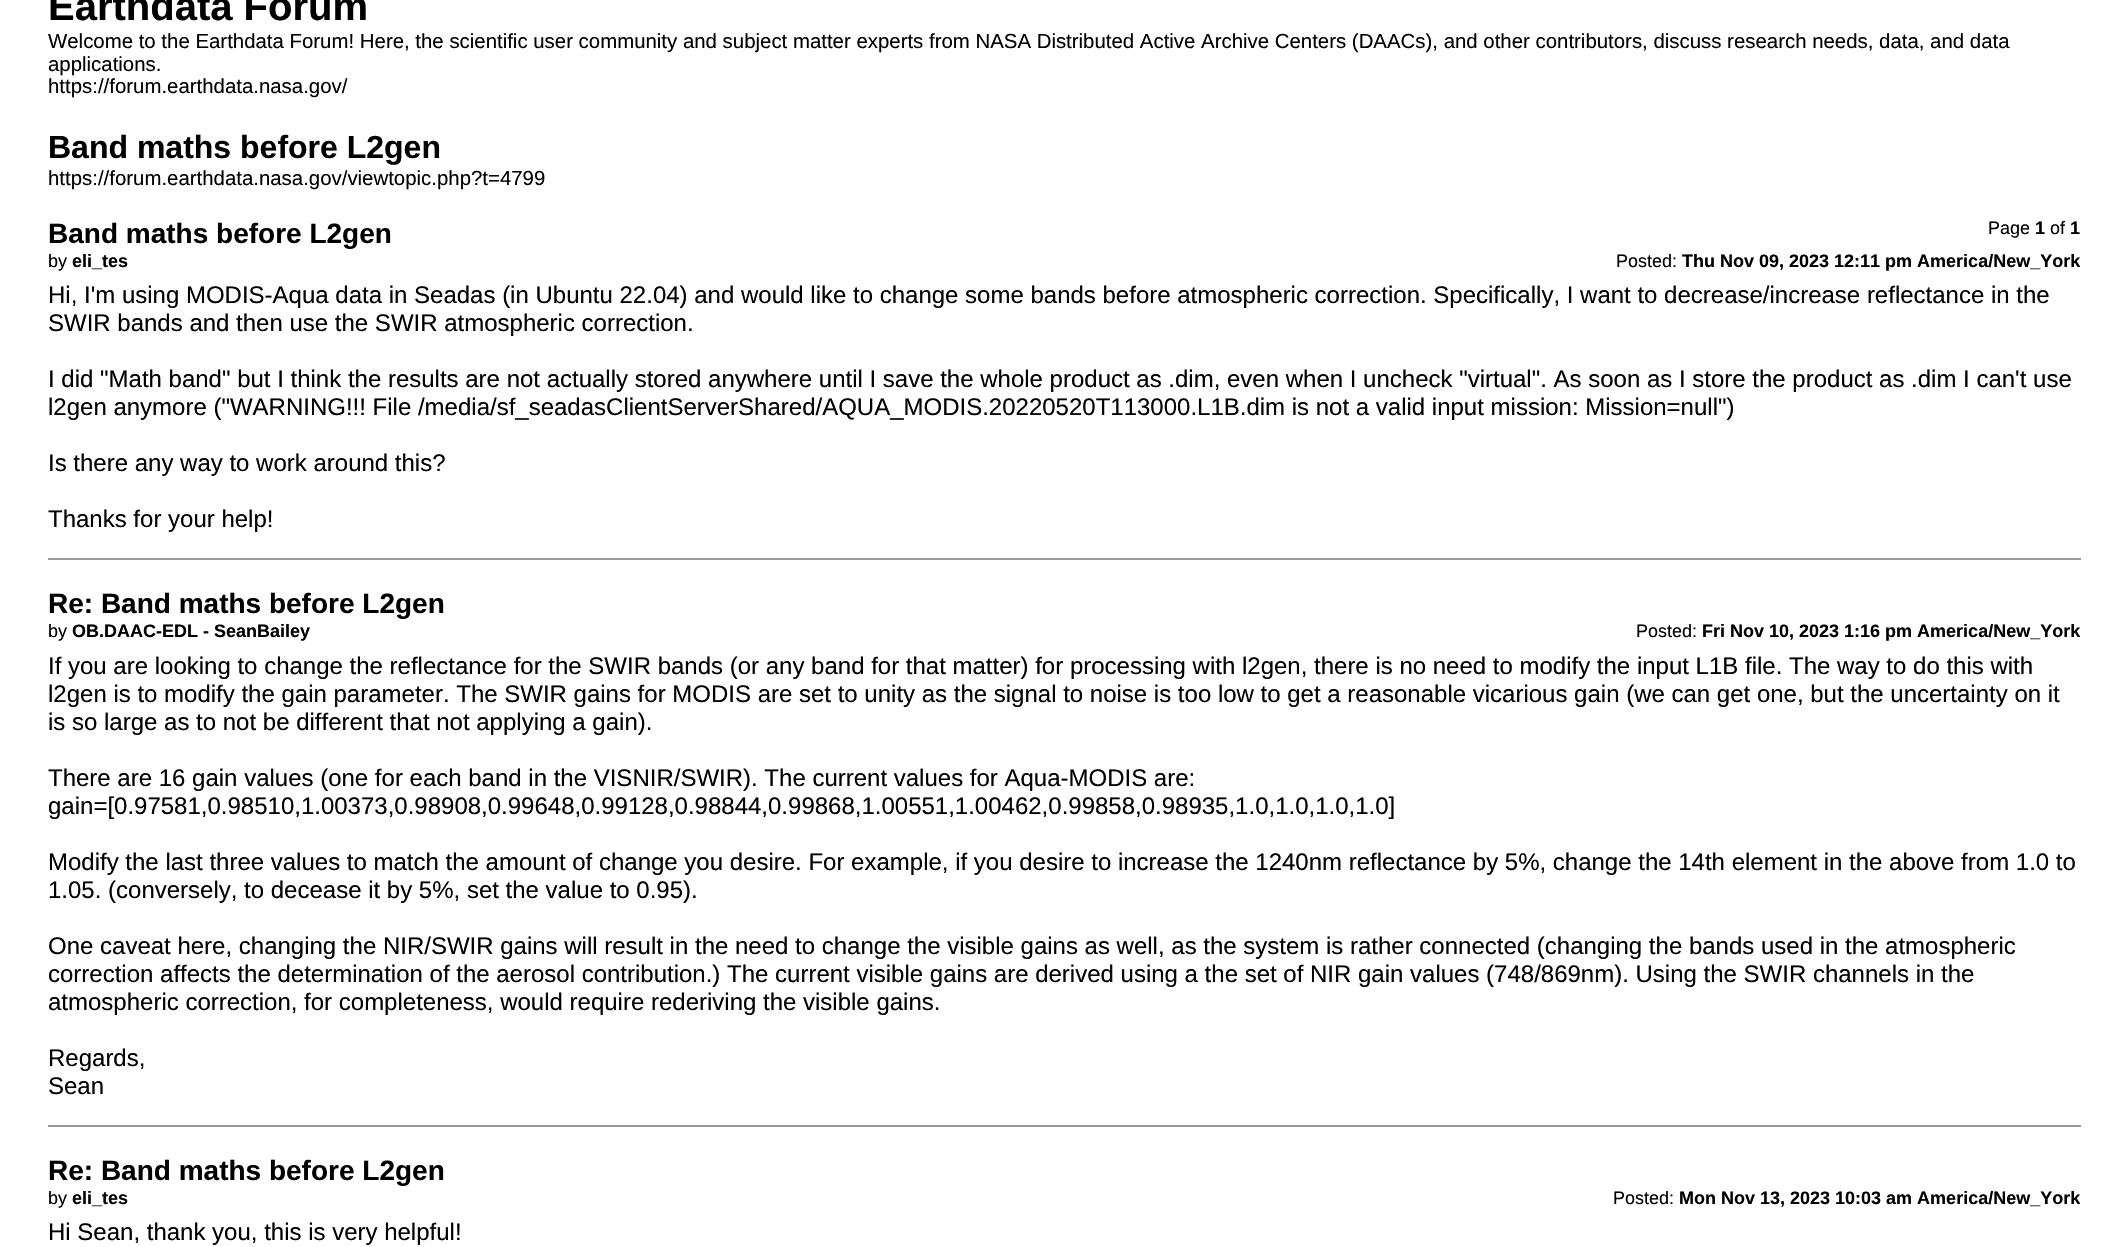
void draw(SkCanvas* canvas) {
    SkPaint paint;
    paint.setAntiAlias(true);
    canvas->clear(0xFFFFFFFF);
    SkFont font1(fontMgr->matchFamilyStyle("Liberation Sans", SkFontStyle::Bold()), 40);
    font1.setSubpixel(true);
    paint.setColor(0xFF000000);
    canvas->drawString("Earthdata Forum", 48, 20, font1, paint);
    SkFont font2(fontMgr->matchFamilyStyle("Liberation Sans", SkFontStyle::Normal()), 20.4f);
    font2.setSubpixel(true);
    canvas->drawString("Welcome to the Earthdata Forum! Here, the scientific user community and subject matter experts from NASA Distributed Active Archive Centers (DAACs), and other contributors, discuss research needs, data, and data", 48, 48, font2, paint);
    canvas->drawString("applications.", 48, 71, font2, paint);
    canvas->drawString("https://forum.earthdata.nasa.gov/", 48, 93, font2, paint);
    SkFont font3(fontMgr->matchFamilyStyle("Liberation Sans", SkFontStyle::Bold()), 32);
    font3.setSubpixel(true);
    canvas->drawString("Band maths before L2gen", 48, 158, font3, paint);
    canvas->drawString("https://forum.earthdata.nasa.gov/viewtopic.php?t=4799", 48, 185, font2, paint);
    SkFont font4(fontMgr->matchFamilyStyle("Liberation Sans", SkFontStyle::Normal()), 18);
    font4.setSubpixel(true);
    canvas->drawString("Page", 1988, 234, font4, paint);
    SkFont font5(fontMgr->matchFamilyStyle("Liberation Sans", SkFontStyle::Bold()), 18);
    font5.setSubpixel(true);
    canvas->drawString("1", 2035, 234, font5, paint);
    canvas->drawString("of", 2050, 234, font4, paint);
    canvas->drawString("1", 2070, 234, font5, paint);
    SkFont font6(fontMgr->matchFamilyStyle("Liberation Sans", SkFontStyle::Bold()), 28);
    font6.setSubpixel(true);
    canvas->drawString("Band maths before L2gen", 48, 243, font6, paint);
    canvas->drawString("by", 48, 267, font4, paint);
    canvas->drawString("eli_tes", 72, 267, font5, paint);
    canvas->drawString("Posted:", 1616, 267, font4, paint);
    canvas->drawString("Thu Nov 09, 2023 12:11 pm America/New_York", 1682, 267, font5, paint);
    SkFont font7(fontMgr->matchFamilyStyle("Liberation Sans", SkFontStyle::Normal()), 24);
    font7.setSubpixel(true);
    canvas->drawString("Hi, I'm using MODIS-Aqua data in Seadas (in Ubuntu 22.04) and would like to change some bands before atmospheric correction. Specifically, I want to decrease/increase reflectance in the", 48, 303, font7, paint);
    canvas->drawString("SWIR bands and then use the SWIR atmospheric correction.", 48, 331, font7, paint);
    canvas->drawString("I did \"Math band\" but I think the results are not actually stored anywhere until I save the whole product as .dim, even when I uncheck \"virtual\". As soon as I store the product as .dim I can't use", 48, 387, font7, paint);
    canvas->drawString("l2gen anymore (\"WARNING!!! File /media/sf_seadasClientServerShared/AQUA_MODIS.20220520T113000.L1B.dim is not a valid input mission: Mission=null\")", 48, 415, font7, paint);
    canvas->drawString("Is there any way to work around this?", 48, 471, font7, paint);
    canvas->drawString("Thanks for your help!", 48, 527, font7, paint);
    paint.setColor(0xFF999999);
    canvas->drawRect(SkRect::MakeXYWH(48, 558, 2033, 2), paint);
    paint.setColor(0xFF000000);
    canvas->drawString("Re: Band maths before L2gen", 48, 613, font6, paint);
    canvas->drawString("by", 48, 637, font4, paint);
    canvas->drawString("OB.DAAC-EDL - SeanBailey", 72, 637, font5, paint);
    canvas->drawString("Posted:", 1636, 637, font4, paint);
    canvas->drawString("Fri Nov 10, 2023 1:16 pm America/New_York", 1702, 637, font5, paint);
    canvas->drawString("If you are looking to change the reflectance for the SWIR bands (or any band for that matter) for processing with l2gen, there is no need to modify the input L1B file. The way to do this with", 48, 674, font7, paint);
    canvas->drawString("l2gen is to modify the gain parameter. The SWIR gains for MODIS are set to unity as the signal to noise is too low to get a reasonable vicarious gain (we can get one, but the uncertainty on it", 48, 702, font7, paint);
    canvas->drawString("is so large as to not be different that not applying a gain).", 48, 730, font7, paint);
    canvas->drawString("There are 16 gain values (one for each band in the VISNIR/SWIR). The current values for Aqua-MODIS are:", 48, 786, font7, paint);
    canvas->drawString("gain=[0.97581,0.98510,1.00373,0.98908,0.99648,0.99128,0.98844,0.99868,1.00551,1.00462,0.99858,0.98935,1.0,1.0,1.0,1.0]", 48, 814, font7, paint);
    canvas->drawString("Modify the last three values to match the amount of change you desire. For example, if you desire to increase the 1240nm reflectance by 5%, change the 14th element in the above from 1.0 to", 48, 870, font7, paint);
    canvas->drawString("1.05. (conversely, to decease it by 5%, set the value to 0.95).", 48, 898, font7, paint);
    canvas->drawString("One caveat here, changing the NIR/SWIR gains will result in the need to change the visible gains as well, as the system is rather connected (changing the bands used in the atmospheric", 48, 954, font7, paint);
    canvas->drawString("correction affects the determination of the aerosol contribution.) The current visible gains are derived using a the set of NIR gain values (748/869nm). Using the SWIR channels in the", 48, 982, font7, paint);
    canvas->drawString("atmospheric correction, for completeness, would require rederiving the visible gains.", 48, 1010, font7, paint);
    canvas->drawString("Regards,", 48, 1066, font7, paint);
    canvas->drawString("Sean", 48, 1094, font7, paint);
    paint.setColor(0xFF999999);
    canvas->drawRect(SkRect::MakeXYWH(48, 1125, 2033, 2), paint);
    paint.setColor(0xFF000000);
    canvas->drawString("Re: Band maths before L2gen", 48, 1180, font6, paint);
    canvas->drawString("by", 48, 1204, font4, paint);
    canvas->drawString("eli_tes", 72, 1204, font5, paint);
    canvas->drawString("Posted:", 1613, 1204, font4, paint);
    canvas->drawString("Mon Nov 13, 2023 10:03 am America/New_York", 1679, 1204, font5, paint);
    canvas->drawString("Hi Sean, thank you, this is very helpful!", 48, 1240, font7, paint);
}
